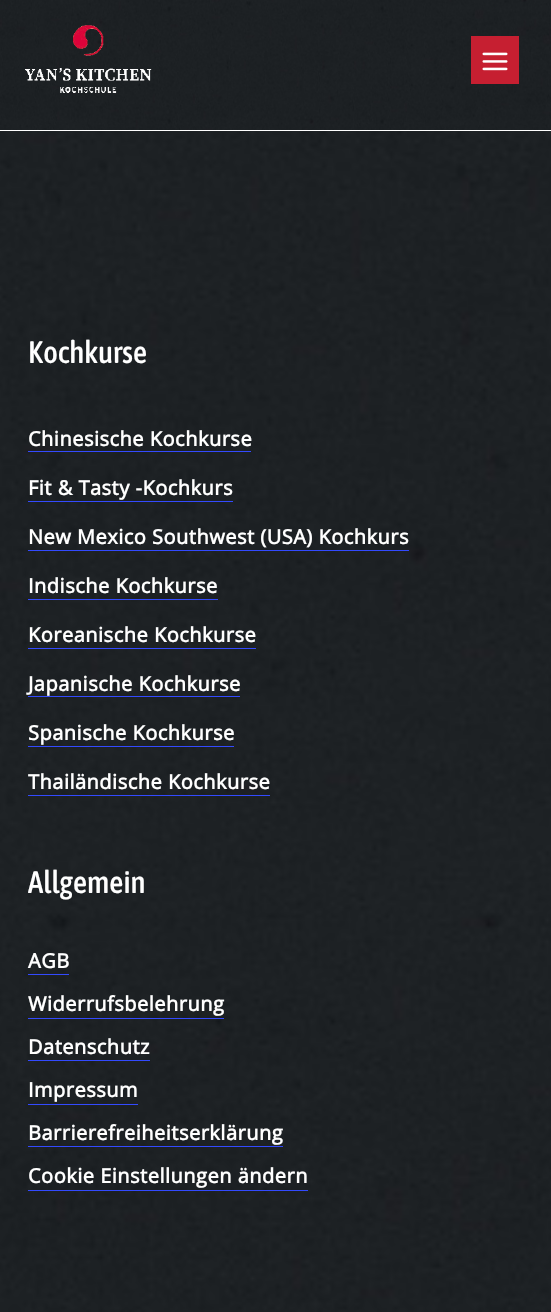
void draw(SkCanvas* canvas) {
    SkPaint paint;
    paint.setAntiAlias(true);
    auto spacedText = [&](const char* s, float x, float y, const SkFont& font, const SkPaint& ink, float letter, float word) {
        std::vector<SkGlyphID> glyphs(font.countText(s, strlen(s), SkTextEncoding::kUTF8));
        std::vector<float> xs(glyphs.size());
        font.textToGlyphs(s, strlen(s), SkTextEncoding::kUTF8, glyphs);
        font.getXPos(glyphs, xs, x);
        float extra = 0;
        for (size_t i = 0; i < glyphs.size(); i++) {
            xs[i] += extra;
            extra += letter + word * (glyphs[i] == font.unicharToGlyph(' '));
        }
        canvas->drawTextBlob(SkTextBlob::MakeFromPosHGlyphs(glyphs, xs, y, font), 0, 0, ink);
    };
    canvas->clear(0xFFFFFFFF);
    canvas->drawImageRect(SkImages::DeferredFromEncodedData(SkData::MakeFromFileName("img1.png")), SkRect::MakeXYWH(0, 0, 551, 130), SkSamplingOptions());
    canvas->drawImageRect(SkImages::DeferredFromEncodedData(SkData::MakeFromFileName("img2.png")), SkRect::MakeXYWH(25, 25, 127, 68), SkSamplingOptions());
    paint.setColor(0xFFC61F31);
    canvas->drawRect(SkRect::MakeXYWH(471, 36, 48, 48), paint);
    canvas->drawImageRect(SkImages::DeferredFromEncodedData(SkData::MakeFromFileName("img3.png")), SkRect::MakeXYWH(482, 52, 26, 19), SkSamplingOptions());
    canvas->drawImageRect(SkImages::DeferredFromEncodedData(SkData::MakeFromFileName("img4.png")), SkRect::MakeXYWH(0, 131, 551, 1181), SkSamplingOptions());
    SkFont font1(fontMgr->matchFamilyStyle("Asap Condensed", SkFontStyle(500, SkFontStyle::kNormal_Width, SkFontStyle::kUpright_Slant)), 31);
    font1.setSubpixel(true);
    paint.setColor(0xFFFFFFFF);
    canvas->drawString("Kochkurse", 28, 363, font1, paint);
    SkFont font2(fontMgr->matchFamilyStyle("Open Sans", SkFontStyle::Bold()), 20);
    font2.setSubpixel(true);
    spacedText("Chinesische Kochkurse", 28, 446, font2, paint, 0.5f, 0);
    paint.setColor(0xFF334AFF);
    canvas->drawRect(SkRect::MakeXYWH(28, 451, 223, 1), paint);
    paint.setColor(0xFFFFFFFF);
    spacedText("Fit & Tasty -Kochkurs", 28, 495, font2, paint, 0.5f, 0);
    paint.setColor(0xFF334AFF);
    canvas->drawRect(SkRect::MakeXYWH(28, 501, 205, 1), paint);
    paint.setColor(0xFFFFFFFF);
    spacedText("New Mexico Southwest (USA) Kochkurs", 28, 544, font2, paint, 0.5f, 0);
    paint.setColor(0xFF334AFF);
    canvas->drawRect(SkRect::MakeXYWH(28, 550, 381, 1), paint);
    paint.setColor(0xFFFFFFFF);
    spacedText("Indische Kochkurse", 28, 593, font2, paint, 0.5f, 0);
    paint.setColor(0xFF334AFF);
    canvas->drawRect(SkRect::MakeXYWH(28, 599, 190, 1), paint);
    paint.setColor(0xFFFFFFFF);
    spacedText("Koreanische Kochkurse", 28, 642, font2, paint, 0.5f, 0);
    paint.setColor(0xFF334AFF);
    canvas->drawRect(SkRect::MakeXYWH(28, 648, 228, 1), paint);
    paint.setColor(0xFFFFFFFF);
    spacedText("Japanische Kochkurse", 28, 691, font2, paint, 0.5f, 0);
    paint.setColor(0xFF334AFF);
    canvas->drawRect(SkRect::MakeXYWH(28, 696, 212, 1), paint);
    paint.setColor(0xFFFFFFFF);
    spacedText("Spanische Kochkurse", 28, 740, font2, paint, 0.5f, 0);
    paint.setColor(0xFF334AFF);
    canvas->drawRect(SkRect::MakeXYWH(28, 746, 206, 1), paint);
    paint.setColor(0xFFFFFFFF);
    spacedText("Thailändische Kochkurse", 28, 789, font2, paint, 0.5f, 0);
    paint.setColor(0xFF334AFF);
    canvas->drawRect(SkRect::MakeXYWH(28, 795, 242, 1), paint);
    paint.setColor(0xFFFFFFFF);
    canvas->drawString("Allgemein", 28, 893, font1, paint);
    spacedText("AGB", 28, 968, font2, paint, 0.5f, 0);
    paint.setColor(0xFF334AFF);
    canvas->drawRect(SkRect::MakeXYWH(28, 974, 41, 1), paint);
    paint.setColor(0xFFFFFFFF);
    spacedText("Widerrufsbelehrung", 28, 1011, font2, paint, 0.5f, 0);
    paint.setColor(0xFF334AFF);
    canvas->drawRect(SkRect::MakeXYWH(28, 1018, 196, 1), paint);
    paint.setColor(0xFFFFFFFF);
    spacedText("Datenschutz", 28, 1054, font2, paint, 0.5f, 0);
    paint.setColor(0xFF334AFF);
    canvas->drawRect(SkRect::MakeXYWH(28, 1060, 122, 1), paint);
    paint.setColor(0xFFFFFFFF);
    spacedText("Impressum", 28, 1097, font2, paint, 0.5f, 0);
    paint.setColor(0xFF334AFF);
    canvas->drawRect(SkRect::MakeXYWH(28, 1104, 110, 1), paint);
    paint.setColor(0xFFFFFFFF);
    spacedText("Barrierefreiheitserklärung", 28, 1140, font2, paint, 0.5f, 0);
    paint.setColor(0xFF334AFF);
    canvas->drawRect(SkRect::MakeXYWH(28, 1146, 255, 1), paint);
    paint.setColor(0xFFFFFFFF);
    spacedText("Cookie Einstellungen ändern", 28, 1183, font2, paint, 0.5f, 0);
    paint.setColor(0xFF334AFF);
    canvas->drawRect(SkRect::MakeXYWH(28, 1190, 280, 1), paint);
}
